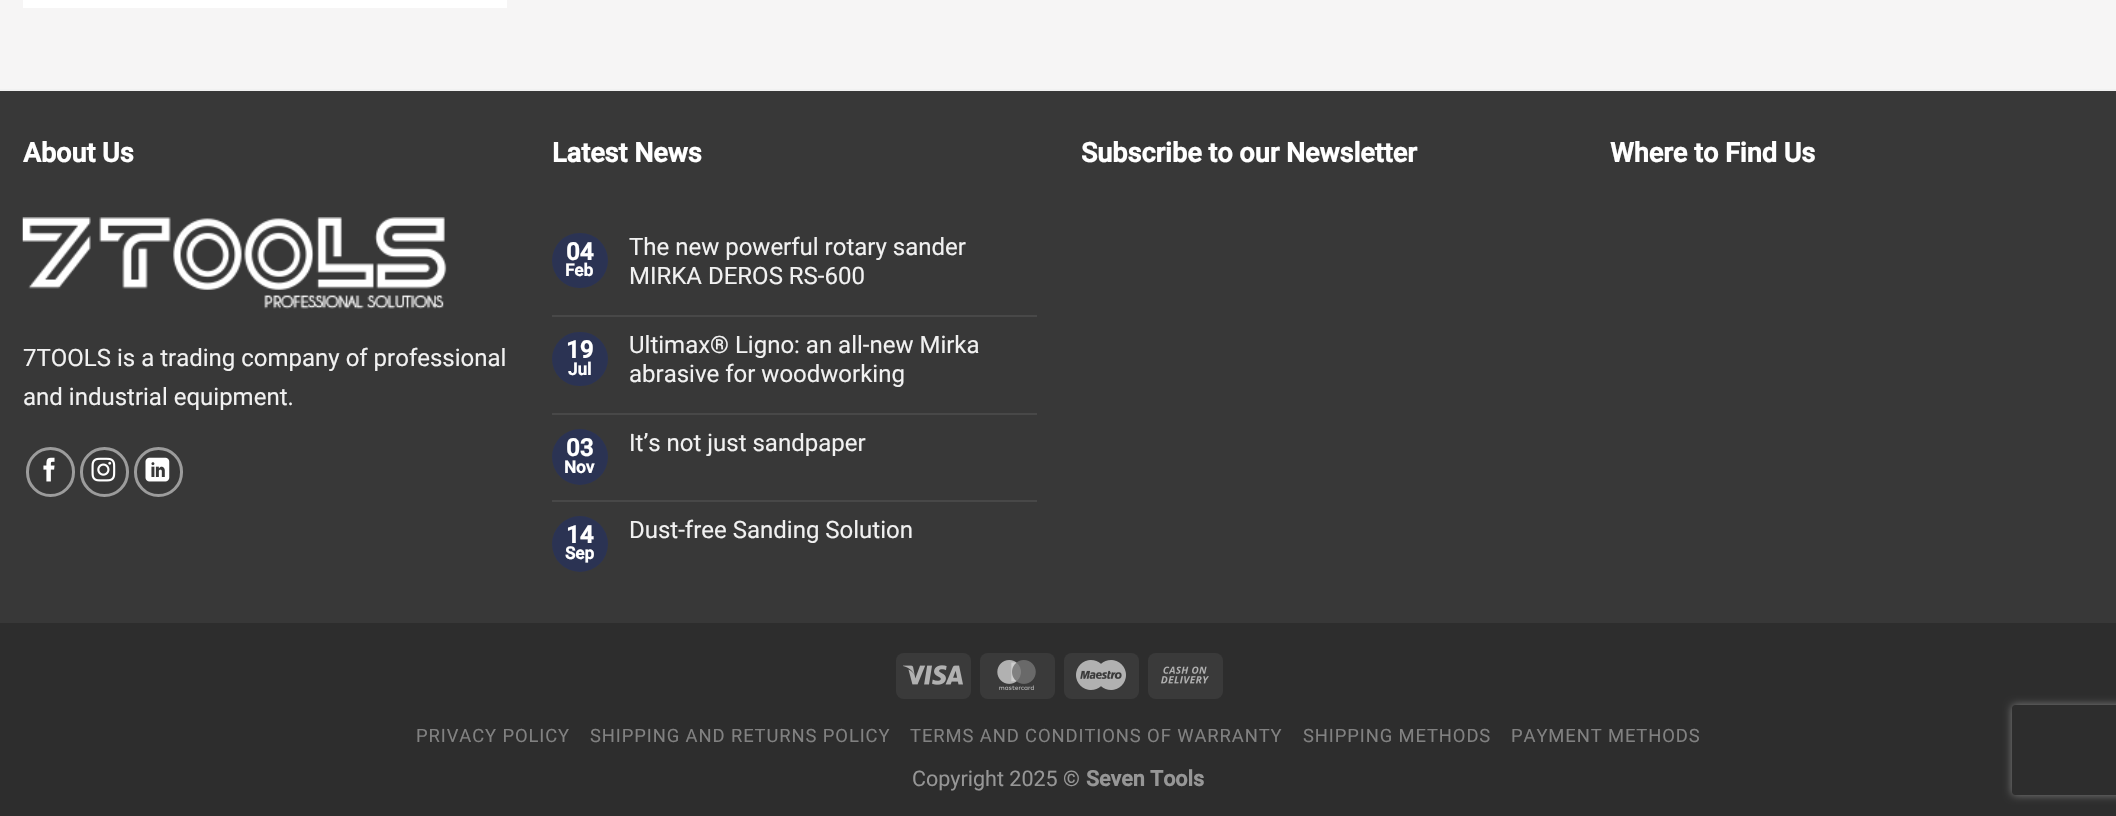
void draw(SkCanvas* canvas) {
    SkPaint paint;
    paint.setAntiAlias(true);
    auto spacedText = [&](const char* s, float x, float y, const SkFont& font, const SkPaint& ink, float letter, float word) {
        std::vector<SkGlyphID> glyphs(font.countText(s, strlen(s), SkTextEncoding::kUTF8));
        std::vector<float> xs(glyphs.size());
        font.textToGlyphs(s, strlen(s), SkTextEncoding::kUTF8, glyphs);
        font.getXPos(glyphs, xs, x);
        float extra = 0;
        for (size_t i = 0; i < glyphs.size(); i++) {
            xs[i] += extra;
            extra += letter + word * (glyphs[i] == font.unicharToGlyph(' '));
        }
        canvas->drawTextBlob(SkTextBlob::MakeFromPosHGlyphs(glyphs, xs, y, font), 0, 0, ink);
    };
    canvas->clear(0xFFF6F5F5);
    paint.setColor(0xFFFFFFFF);
    canvas->drawRect(SkRect::MakeXYWH(23, 0, 484, 8), paint);
    paint.setColor(0xFF383838);
    canvas->drawRect(SkRect::MakeXYWH(0, 91, 2116, 532), paint);
    paint.setColor(0xFFF1F1F1);
    canvas->drawRect(SkRect::MakeXYWH(0, 89, 2116, 2), paint);
    SkFont font1(fontMgr->matchFamilyStyle("Roboto", SkFontStyle::Bold()), 27);
    font1.setSubpixel(true);
    paint.setColor(0xFFFFFFFF);
    canvas->drawString("About Us", 23, 162, font1, paint);
    canvas->drawImageRect(SkImages::DeferredFromEncodedData(SkData::MakeFromFileName("img1.png")), SkRect::MakeXYWH(22, 217, 425, 92), SkSamplingOptions());
    SkFont font2(fontMgr->matchFamilyStyle("Roboto", SkFontStyle::Normal()), 24);
    font2.setSubpixel(true);
    paint.setColor(0xFFF1F1F1);
    canvas->drawString("7TOOLS is a trading company of professional", 23, 366, font2, paint);
    canvas->drawString("and industrial equipment.", 23, 405, font2, paint);
    paint.setStyle(SkPaint::kStroke_Style);
    paint.setStrokeWidth(3);
    paint.setColor(0xFF9C9C9C);
    canvas->drawRoundRect(SkRect::MakeXYWH(27.5f, 448.5f, 46, 47), 23, 23, paint);
    canvas->drawImageRect(SkImages::DeferredFromEncodedData(SkData::MakeFromFileName("img2.png")), SkRect::MakeXYWH(43, 457, 12, 25), SkSamplingOptions());
    canvas->drawRoundRect(SkRect::MakeXYWH(81.5f, 448.5f, 46, 47), 23, 23, paint);
    canvas->drawImageRect(SkImages::DeferredFromEncodedData(SkData::MakeFromFileName("img3.png")), SkRect::MakeXYWH(91, 457, 25, 25), SkSamplingOptions());
    canvas->drawRoundRect(SkRect::MakeXYWH(135.5f, 448.5f, 46, 47), 23, 23, paint);
    canvas->drawImageRect(SkImages::DeferredFromEncodedData(SkData::MakeFromFileName("img4.png")), SkRect::MakeXYWH(145, 457, 25, 25), SkSamplingOptions());
    paint.setStyle(SkPaint::kFill_Style);
    paint.setColor(0xFFFFFFFF);
    canvas->drawString("Latest News", 552, 162, font1, paint);
    paint.setColor(0xFF2B3353);
    canvas->drawRoundRect(SkRect::MakeXYWH(552, 233, 56, 55), 27.5f, 27.5f, paint);
    SkFont font3(fontMgr->matchFamilyStyle("Roboto", SkFontStyle::Bold()), 24);
    font3.setSubpixel(true);
    paint.setColor(0xFFFFFFFF);
    canvas->drawString("04", 566, 260, font3, paint);
    SkFont font4(fontMgr->matchFamilyStyle("Roboto", SkFontStyle::Bold()), 17);
    font4.setSubpixel(true);
    canvas->drawString("Feb", 565, 276, font4, paint);
    paint.setColor(0xFFF1F1F1);
    canvas->drawString("The new powerful rotary sander", 629, 255, font2, paint);
    canvas->drawString("MIRKA DEROS RS-600", 629, 284, font2, paint);
    paint.setColor(0xFF484848);
    canvas->drawRect(SkRect::MakeXYWH(552, 315, 485, 2), paint);
    paint.setColor(0xFF2B3353);
    canvas->drawRoundRect(SkRect::MakeXYWH(552, 332, 56, 54), 27, 27, paint);
    paint.setColor(0xFFFFFFFF);
    canvas->drawString("19", 566, 358, font3, paint);
    canvas->drawString("Jul", 568, 375, font4, paint);
    paint.setColor(0xFFF1F1F1);
    canvas->drawString("Ultimax® Ligno: an all-new Mirka", 629, 353, font2, paint);
    canvas->drawString("abrasive for woodworking", 629, 382, font2, paint);
    paint.setColor(0xFF484848);
    canvas->drawRect(SkRect::MakeXYWH(552, 413, 485, 2), paint);
    paint.setColor(0xFF2B3353);
    canvas->drawCircle(580, 457, 28, paint);
    paint.setColor(0xFFFFFFFF);
    canvas->drawString("03", 566, 456, font3, paint);
    canvas->drawString("Nov", 564, 473, font4, paint);
    paint.setColor(0xFFF1F1F1);
    canvas->drawString("It’s not just sandpaper", 629, 451, font2, paint);
    paint.setColor(0xFF484848);
    canvas->drawRect(SkRect::MakeXYWH(552, 500, 485, 2), paint);
    paint.setColor(0xFF2B3353);
    canvas->drawCircle(580, 544, 28, paint);
    paint.setColor(0xFFFFFFFF);
    canvas->drawString("14", 566, 543, font3, paint);
    canvas->drawString("Sep", 565, 559, font4, paint);
    paint.setColor(0xFFF1F1F1);
    canvas->drawString("Dust-free Sanding Solution", 629, 538, font2, paint);
    paint.setColor(0xFFFFFFFF);
    canvas->drawString("Subscribe to our Newsletter", 1081, 162, font1, paint);
    canvas->drawString("Where to Find Us", 1610, 162, font1, paint);
    paint.setColor(0xFF2D2D2D);
    canvas->drawRect(SkRect::MakeXYWH(0, 623, 2116, 193), paint);
    paint.setColor(0xFF3A3A3A);
    canvas->drawRoundRect(SkRect::MakeXYWH(896, 653, 75, 46), 8, 8, paint);
    canvas->drawImageRect(SkImages::DeferredFromEncodedData(SkData::MakeFromFileName("img5.png")), SkRect::MakeXYWH(903, 665, 60, 20), SkSamplingOptions());
    canvas->drawRoundRect(SkRect::MakeXYWH(980, 653, 75, 46), 8, 8, paint);
    canvas->drawImageRect(SkImages::DeferredFromEncodedData(SkData::MakeFromFileName("img6.png")), SkRect::MakeXYWH(997, 660, 39, 30), SkSamplingOptions());
    canvas->drawRoundRect(SkRect::MakeXYWH(1064, 653, 75, 46), 8, 8, paint);
    canvas->drawImageRect(SkImages::DeferredFromEncodedData(SkData::MakeFromFileName("img7.png")), SkRect::MakeXYWH(1076, 660, 50, 30), SkSamplingOptions());
    canvas->drawRoundRect(SkRect::MakeXYWH(1148, 653, 75, 46), 8, 8, paint);
    canvas->drawImageRect(SkImages::DeferredFromEncodedData(SkData::MakeFromFileName("img8.png")), SkRect::MakeXYWH(1161, 666, 48, 18), SkSamplingOptions());
    SkFont font5(fontMgr->matchFamilyStyle("Roboto", SkFontStyle::Normal()), 18.4f);
    font5.setSubpixel(true);
    paint.setColor(0xFF818181);
    spacedText("PRIVACY POLICY", 416, 742, font5, paint, 0.9f, 0);
    spacedText("SHIPPING AND RETURNS POLICY", 590, 742, font5, paint, 0.9f, 0);
    spacedText("TERMS AND CONDITIONS OF WARRANTY", 910, 742, font5, paint, 0.9f, 0);
    spacedText("SHIPPING METHODS", 1303, 742, font5, paint, 0.9f, 0);
    spacedText("PAYMENT METHODS", 1511, 742, font5, paint, 0.9f, 0);
    SkFont font6(fontMgr->matchFamilyStyle("Roboto", SkFontStyle::Normal()), 21.5f);
    font6.setSubpixel(true);
    paint.setColor(0xFF969696);
    canvas->drawString("Copyright 2025 ©", 912, 786, font6, paint);
    SkFont font7(fontMgr->matchFamilyStyle("Roboto", SkFontStyle::Bold()), 21.5f);
    font7.setSubpixel(true);
    canvas->drawString("Seven Tools", 1086, 786, font7, paint);
    canvas->save();
    canvas->clipPath(SkPathBuilder(SkPathFillType::kEvenOdd).moveTo(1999, 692).lineTo(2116, 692).lineTo(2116, 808).lineTo(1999, 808).close().moveTo(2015, 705).lineTo(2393, 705).cubicTo(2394.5f, 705, 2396, 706.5f, 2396, 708).lineTo(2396, 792).cubicTo(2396, 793.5f, 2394.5f, 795, 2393, 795).lineTo(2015, 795).cubicTo(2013.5f, 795, 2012, 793.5f, 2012, 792).lineTo(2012, 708).cubicTo(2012, 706.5f, 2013.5f, 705, 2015, 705).close().detach(), true);
    paint.setColor(0xFF808080);
    paint.setMaskFilter(SkMaskFilter::MakeBlur(kNormal_SkBlurStyle, 4));
    canvas->drawRoundRect(SkRect::MakeXYWH(2012, 705, 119, 90), 3, 3, paint);
    paint.setMaskFilter(nullptr);
    canvas->restore();
}
